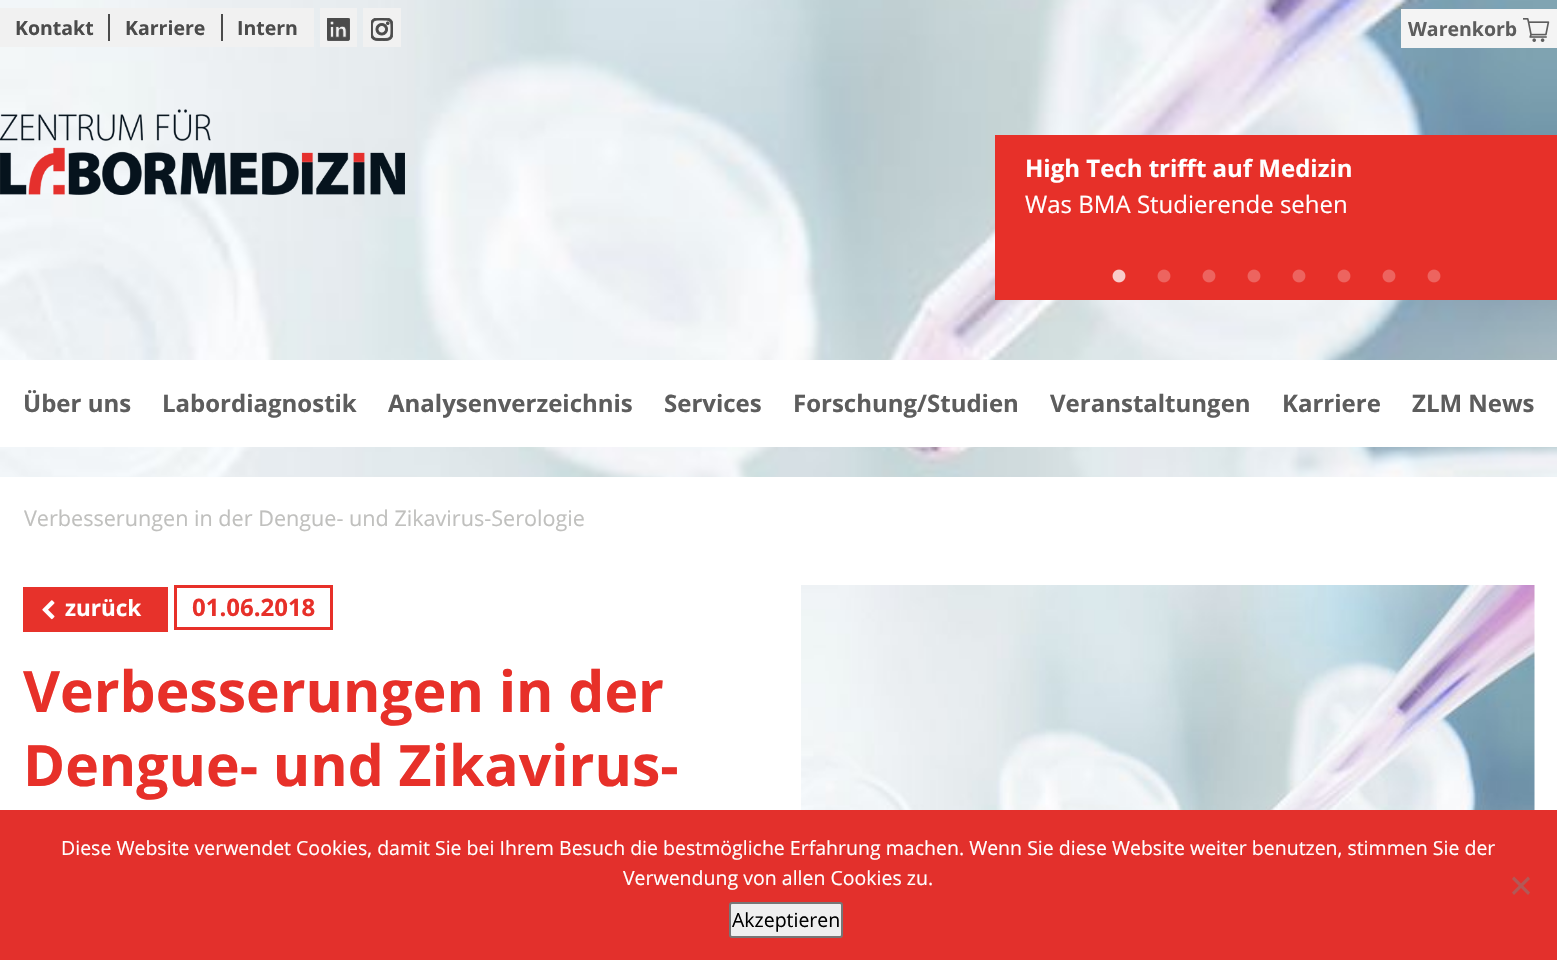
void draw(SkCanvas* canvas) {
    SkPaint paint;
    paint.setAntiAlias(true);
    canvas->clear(0xFFFFFFFF);
    canvas->drawImageRect(SkImages::DeferredFromEncodedData(SkData::MakeFromFileName("img1.png")), SkRect::MakeXYWH(0, 0, 1557, 477), SkSamplingOptions());
    paint.setColor(0xFFF1F1F1);
    canvas->drawRect(SkRect::MakeXYWH(0, 8, 314, 39), paint);
    SkFont font1(fontMgr->matchFamilyStyle("Open Sans", SkFontStyle::Bold()), 19.5f);
    font1.setSubpixel(true);
    paint.setColor(0xFF4B4B4B);
    canvas->drawString("Kontakt", 15, 35, font1, paint);
    canvas->drawRect(SkRect::MakeXYWH(108, 14, 2, 27), paint);
    canvas->drawString("Karriere", 125, 35, font1, paint);
    canvas->drawRect(SkRect::MakeXYWH(221, 14, 2, 27), paint);
    canvas->drawString("Intern", 237, 35, font1, paint);
    paint.setColor(0xFFF1F1F1);
    canvas->drawRect(SkRect::MakeXYWH(320, 8, 37, 39), paint);
    canvas->drawImageRect(SkImages::DeferredFromEncodedData(SkData::MakeFromFileName("img2.png")), SkRect::MakeXYWH(327, 18, 23, 23), SkSamplingOptions());
    canvas->drawRect(SkRect::MakeXYWH(363, 8, 38, 39), paint);
    canvas->drawImageRect(SkImages::DeferredFromEncodedData(SkData::MakeFromFileName("img3.png")), SkRect::MakeXYWH(371, 18, 22, 23), SkSamplingOptions());
    paint.setColor(0xFFF4F4F4);
    canvas->drawRect(SkRect::MakeXYWH(1401, 9, 156, 39), paint);
    paint.setColor(0xFF5D5D5D);
    canvas->drawString("Warenkorb", 1408, 36, font1, paint);
    canvas->drawImageRect(SkImages::DeferredFromEncodedData(SkData::MakeFromFileName("img4.png")), SkRect::MakeXYWH(1523, 18, 27, 24), SkSamplingOptions());
    canvas->drawImageRect(SkImages::DeferredFromEncodedData(SkData::MakeFromFileName("img5.png")), SkRect::MakeXYWH(0, 109, 405, 86), SkSamplingOptions());
    paint.setColor(0xFFE73029);
    canvas->drawRect(SkRect::MakeXYWH(995, 135, 562, 165), paint);
    SkFont font2(fontMgr->matchFamilyStyle("Open Sans", SkFontStyle::Bold()), 24);
    font2.setSubpixel(true);
    paint.setColor(0xFFFFFFFF);
    canvas->drawString("High Tech trifft auf Medizin", 1025, 177, font2, paint);
    SkFont font3(fontMgr->matchFamilyStyle("Open Sans", SkFontStyle::Normal()), 24);
    font3.setSubpixel(true);
    canvas->drawString("Was BMA Studierende sehen", 1025, 213, font3, paint);
    canvas->drawImageRect(SkImages::DeferredFromEncodedData(SkData::MakeFromFileName("img6.png")), SkRect::MakeXYWH(1112, 269, 14, 14), SkSamplingOptions());
    canvas->drawImageRect(SkImages::DeferredFromEncodedData(SkData::MakeFromFileName("img7.png")), SkRect::MakeXYWH(1157, 269, 14, 14), SkSamplingOptions());
    canvas->drawImageRect(SkImages::DeferredFromEncodedData(SkData::MakeFromFileName("img7.png")), SkRect::MakeXYWH(1202, 269, 14, 14), SkSamplingOptions());
    canvas->drawImageRect(SkImages::DeferredFromEncodedData(SkData::MakeFromFileName("img7.png")), SkRect::MakeXYWH(1247, 269, 14, 14), SkSamplingOptions());
    canvas->drawImageRect(SkImages::DeferredFromEncodedData(SkData::MakeFromFileName("img7.png")), SkRect::MakeXYWH(1292, 269, 14, 14), SkSamplingOptions());
    canvas->drawImageRect(SkImages::DeferredFromEncodedData(SkData::MakeFromFileName("img7.png")), SkRect::MakeXYWH(1337, 269, 14, 14), SkSamplingOptions());
    canvas->drawImageRect(SkImages::DeferredFromEncodedData(SkData::MakeFromFileName("img7.png")), SkRect::MakeXYWH(1382, 269, 14, 14), SkSamplingOptions());
    canvas->drawImageRect(SkImages::DeferredFromEncodedData(SkData::MakeFromFileName("img7.png")), SkRect::MakeXYWH(1427, 269, 14, 14), SkSamplingOptions());
    canvas->drawRect(SkRect::MakeXYWH(0, 360, 1557, 87), paint);
    paint.setColor(0xFF5D5D5D);
    canvas->drawString("Über uns", 23, 412, font2, paint);
    canvas->drawString("Labordiagnostik", 162, 412, font2, paint);
    canvas->drawString("Analysenverzeichnis", 388, 412, font2, paint);
    canvas->drawString("Services", 664, 412, font2, paint);
    canvas->drawString("Forschung/Studien", 793, 412, font2, paint);
    canvas->drawString("Veranstaltungen", 1050, 412, font2, paint);
    canvas->drawString("Karriere", 1282, 412, font2, paint);
    canvas->drawString("ZLM News", 1412, 412, font2, paint);
    SkFont font4(fontMgr->matchFamilyStyle("Open Sans", SkFontStyle::Normal()), 21.6f);
    font4.setSubpixel(true);
    paint.setColor(0xFFC0C0BE);
    canvas->drawString("Verbesserungen in der Dengue- und Zikavirus-Serologie", 24, 526, font4, paint);
    paint.setColor(0xFFE7322B);
    canvas->drawRect(SkRect::MakeXYWH(23, 587, 145, 45), paint);
    canvas->drawImageRect(SkImages::DeferredFromEncodedData(SkData::MakeFromFileName("img8.png")), SkRect::MakeXYWH(42, 600, 13, 20), SkSamplingOptions());
    SkFont font5(fontMgr->matchFamilyStyle("Open Sans", SkFontStyle::Bold()), 22.5f);
    font5.setSubpixel(true);
    paint.setColor(0xFFFFFFFF);
    canvas->drawString("zurück", 65, 616, font5, paint);
    paint.setStyle(SkPaint::kStroke_Style);
    paint.setStrokeWidth(3);
    paint.setColor(0xFFE73029);
    canvas->drawRect(SkRect::MakeXYWH(175.5f, 586.5f, 156, 42), paint);
    paint.setStyle(SkPaint::kFill_Style);
    canvas->drawString("01.06.2018", 192, 616, font2, paint);
    SkFont font6(fontMgr->matchFamilyStyle("Open Sans", SkFontStyle::Bold()), 57);
    font6.setSubpixel(true);
    canvas->drawString("Verbesserungen in der", 23, 712, font6, paint);
    canvas->drawString("Dengue- und Zikavirus-", 23, 786, font6, paint);
    canvas->drawImageRect(SkImages::DeferredFromEncodedData(SkData::MakeFromFileName("img9.png")), SkRect::MakeXYWH(801, 585, 734, 225), SkSamplingOptions());
    paint.setColor(0xFFE3302C);
    canvas->drawRect(SkRect::MakeXYWH(0, 810, 1557, 150), paint);
    SkFont font7(fontMgr->matchFamilyStyle("Open Sans", SkFontStyle::Normal()), 19.5f);
    font7.setSubpixel(true);
    paint.setColor(0xFFFFFFFF);
    canvas->drawString("Diese Website verwendet Cookies, damit Sie bei Ihrem Besuch die bestmögliche Erfahrung machen. Wenn Sie diese Website weiter benutzen, stimmen Sie der", 61, 855, font7, paint);
    canvas->drawString("Verwendung von allen Cookies zu.", 623, 885, font7, paint);
    paint.setColor(0xFFB25856);
    canvas->drawPath(SkPathBuilder().moveTo(1528, 876.5f).lineTo(1530, 879).lineTo(1514, 895).lineTo(1512, 892.5f).close().detach(), paint);
    canvas->drawPath(SkPathBuilder().moveTo(1512, 879).lineTo(1514, 876.5f).lineTo(1530, 892.5f).lineTo(1528, 895).close().detach(), paint);
    paint.setColor(0xFFEFEFEF);
    canvas->drawRoundRect(SkRect::MakeXYWH(730, 903, 112, 34), 2, 2, paint);
    paint.setStyle(SkPaint::kStroke_Style);
    paint.setStrokeWidth(2);
    paint.setColor(0xFF767676);
    canvas->drawRoundRect(SkRect::MakeXYWH(730, 903, 112, 34), 2, 2, paint);
    paint.setStyle(SkPaint::kFill_Style);
    paint.setColor(0xFF000000);
    canvas->drawString("Akzeptieren", 732, 927, font7, paint);
}
